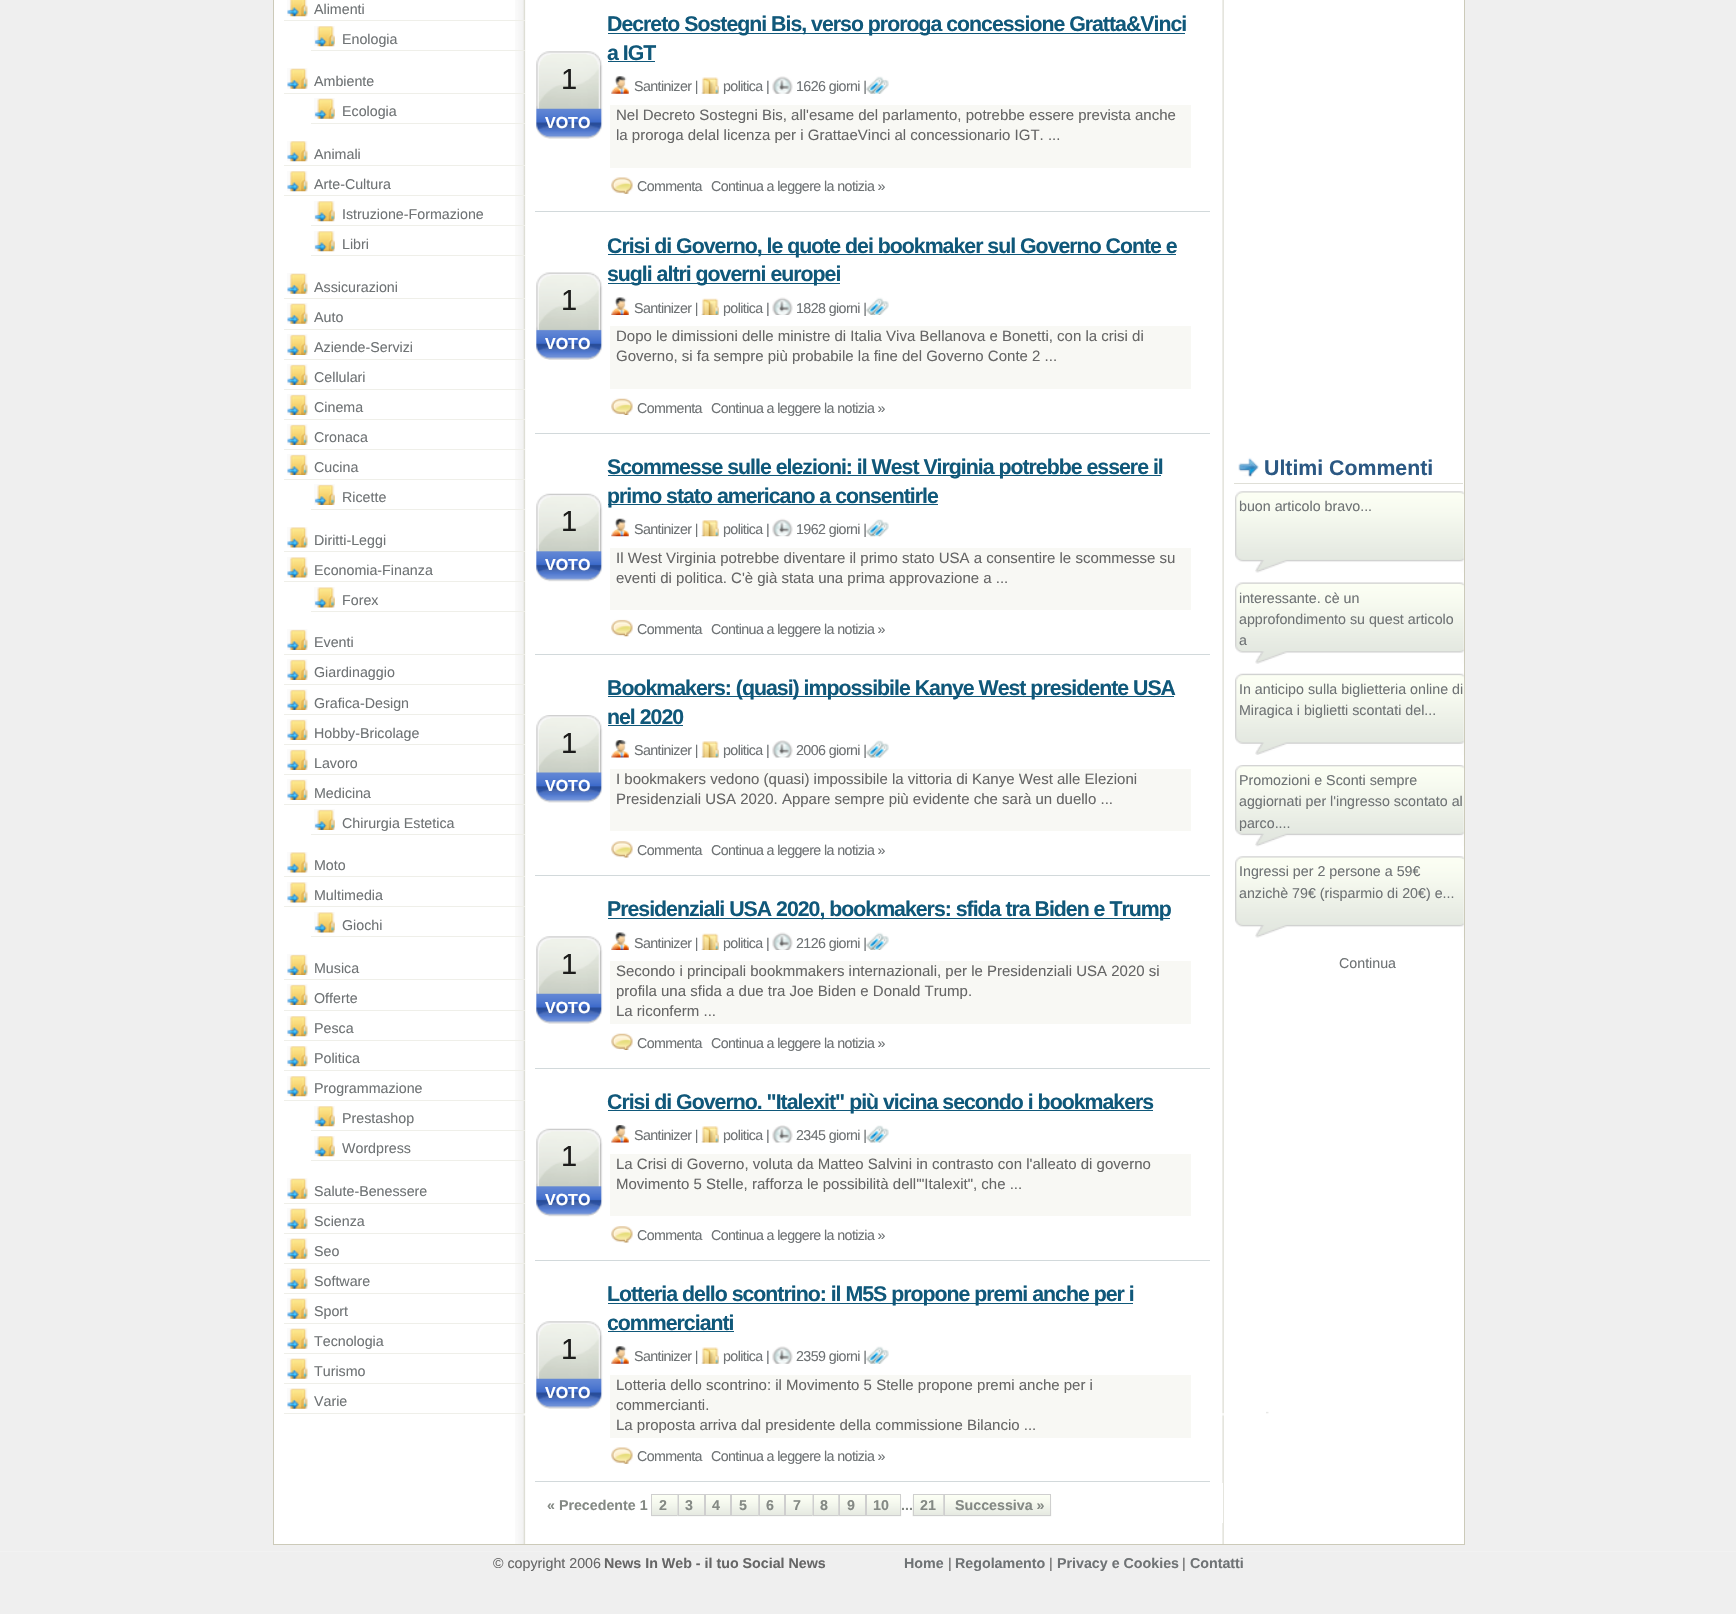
void draw(SkCanvas* canvas) {
    SkPaint paint;
    paint.setAntiAlias(true);
    auto spacedText = [&](const char* s, float x, float y, const SkFont& font, const SkPaint& ink, float letter, float word) {
        std::vector<SkGlyphID> glyphs(font.countText(s, strlen(s), SkTextEncoding::kUTF8));
        std::vector<float> xs(glyphs.size());
        font.textToGlyphs(s, strlen(s), SkTextEncoding::kUTF8, glyphs);
        font.getXPos(glyphs, xs, x);
        float extra = 0;
        for (size_t i = 0; i < glyphs.size(); i++) {
            xs[i] += extra;
            extra += letter + word * (glyphs[i] == font.unicharToGlyph(' '));
        }
        canvas->drawTextBlob(SkTextBlob::MakeFromPosHGlyphs(glyphs, xs, y, font), 0, 0, ink);
    };
    canvas->clear(0xFFEFEFEF);
    paint.setColor(0xFFFFFFFF);
    canvas->drawRect(SkRect::MakeXYWH(274, 0, 1190, 1544), paint);
    canvas->drawImageRect(SkImages::DeferredFromEncodedData(SkData::MakeFromFileName("img1.png")), SkRect::MakeXYWH(515, 0, 754, 1544), SkSamplingOptions());
    paint.setStyle(SkPaint::kStroke_Style);
    paint.setStrokeWidth(1);
    paint.setColor(0xFFCCCAB9);
    canvas->drawRect(SkRect::MakeXYWH(273.5f, -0.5f, 1191, 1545), paint);
    canvas->drawImageRect(SkImages::DeferredFromEncodedData(SkData::MakeFromFileName("img2.png")), SkRect::MakeXYWH(287, 0, 21, 17), SkSamplingOptions());
    paint.setStyle(SkPaint::kFill_Style);
    paint.setColor(0xFFEFEFE9);
    canvas->drawRect(SkRect::MakeXYWH(284, 20, 241, 1), paint);
    SkFont font1(fontMgr->matchFamilyStyle("Liberation Sans", SkFontStyle::Normal()), 14.25f);
    font1.setSubpixel(true);
    paint.setColor(0xFF6F7375);
    canvas->drawString("Alimenti", 314, 14, font1, paint);
    canvas->drawImageRect(SkImages::DeferredFromEncodedData(SkData::MakeFromFileName("img3.png")), SkRect::MakeXYWH(314, 26, 21, 21), SkSamplingOptions());
    paint.setColor(0xFFEFEFE9);
    canvas->drawRect(SkRect::MakeXYWH(311, 50, 214, 1), paint);
    paint.setColor(0xFF6F7375);
    canvas->drawString("Enologia", 342, 44, font1, paint);
    canvas->drawImageRect(SkImages::DeferredFromEncodedData(SkData::MakeFromFileName("img4.png")), SkRect::MakeXYWH(287, 68, 21, 21), SkSamplingOptions());
    paint.setColor(0xFFEFEFE9);
    canvas->drawRect(SkRect::MakeXYWH(284, 93, 241, 1), paint);
    paint.setColor(0xFF6F7375);
    canvas->drawString("Ambiente", 314, 86, font1, paint);
    canvas->drawImageRect(SkImages::DeferredFromEncodedData(SkData::MakeFromFileName("img5.png")), SkRect::MakeXYWH(314, 98, 21, 21), SkSamplingOptions());
    paint.setColor(0xFFEFEFE9);
    canvas->drawRect(SkRect::MakeXYWH(311, 123, 214, 1), paint);
    paint.setColor(0xFF6F7375);
    canvas->drawString("Ecologia", 342, 116, font1, paint);
    canvas->drawImageRect(SkImages::DeferredFromEncodedData(SkData::MakeFromFileName("img6.png")), SkRect::MakeXYWH(287, 141, 21, 21), SkSamplingOptions());
    paint.setColor(0xFFEFEFE9);
    canvas->drawRect(SkRect::MakeXYWH(284, 165, 241, 1), paint);
    paint.setColor(0xFF6F7375);
    canvas->drawString("Animali", 314, 159, font1, paint);
    canvas->drawImageRect(SkImages::DeferredFromEncodedData(SkData::MakeFromFileName("img6.png")), SkRect::MakeXYWH(287, 171, 21, 21), SkSamplingOptions());
    paint.setColor(0xFFEFEFE9);
    canvas->drawRect(SkRect::MakeXYWH(284, 195, 241, 1), paint);
    paint.setColor(0xFF6F7375);
    canvas->drawString("Arte-Cultura", 314, 189, font1, paint);
    canvas->drawImageRect(SkImages::DeferredFromEncodedData(SkData::MakeFromFileName("img3.png")), SkRect::MakeXYWH(314, 201, 21, 21), SkSamplingOptions());
    paint.setColor(0xFFEFEFE9);
    canvas->drawRect(SkRect::MakeXYWH(311, 225, 214, 1), paint);
    paint.setColor(0xFF6F7375);
    canvas->drawString("Istruzione-Formazione", 342, 219, font1, paint);
    canvas->drawImageRect(SkImages::DeferredFromEncodedData(SkData::MakeFromFileName("img3.png")), SkRect::MakeXYWH(314, 231, 21, 21), SkSamplingOptions());
    paint.setColor(0xFFEFEFE9);
    canvas->drawRect(SkRect::MakeXYWH(311, 255, 214, 1), paint);
    paint.setColor(0xFF6F7375);
    canvas->drawString("Libri", 342, 249, font1, paint);
    canvas->drawImageRect(SkImages::DeferredFromEncodedData(SkData::MakeFromFileName("img4.png")), SkRect::MakeXYWH(287, 273, 21, 21), SkSamplingOptions());
    paint.setColor(0xFFEFEFE9);
    canvas->drawRect(SkRect::MakeXYWH(284, 298, 241, 1), paint);
    paint.setColor(0xFF6F7375);
    canvas->drawString("Assicurazioni", 314, 292, font1, paint);
    canvas->drawImageRect(SkImages::DeferredFromEncodedData(SkData::MakeFromFileName("img4.png")), SkRect::MakeXYWH(287, 303, 21, 21), SkSamplingOptions());
    paint.setColor(0xFFEFEFE9);
    canvas->drawRect(SkRect::MakeXYWH(284, 329, 241, 1), paint);
    paint.setColor(0xFF6F7375);
    canvas->drawString("Auto", 314, 322, font1, paint);
    canvas->drawImageRect(SkImages::DeferredFromEncodedData(SkData::MakeFromFileName("img7.png")), SkRect::MakeXYWH(287, 334, 21, 21), SkSamplingOptions());
    paint.setColor(0xFFEFEFE9);
    canvas->drawRect(SkRect::MakeXYWH(284, 359, 241, 1), paint);
    paint.setColor(0xFF6F7375);
    canvas->drawString("Aziende-Servizi", 314, 352, font1, paint);
    canvas->drawImageRect(SkImages::DeferredFromEncodedData(SkData::MakeFromFileName("img7.png")), SkRect::MakeXYWH(287, 364, 21, 21), SkSamplingOptions());
    paint.setColor(0xFFEFEFE9);
    canvas->drawRect(SkRect::MakeXYWH(284, 389, 241, 1), paint);
    paint.setColor(0xFF6F7375);
    canvas->drawString("Cellulari", 314, 382, font1, paint);
    canvas->drawImageRect(SkImages::DeferredFromEncodedData(SkData::MakeFromFileName("img7.png")), SkRect::MakeXYWH(287, 394, 21, 21), SkSamplingOptions());
    paint.setColor(0xFFEFEFE9);
    canvas->drawRect(SkRect::MakeXYWH(284, 419, 241, 1), paint);
    paint.setColor(0xFF6F7375);
    canvas->drawString("Cinema", 314, 412, font1, paint);
    canvas->drawImageRect(SkImages::DeferredFromEncodedData(SkData::MakeFromFileName("img8.png")), SkRect::MakeXYWH(287, 424, 21, 21), SkSamplingOptions());
    paint.setColor(0xFFEFEFE9);
    canvas->drawRect(SkRect::MakeXYWH(284, 449, 241, 1), paint);
    paint.setColor(0xFF6F7375);
    canvas->drawString("Cronaca", 314, 442, font1, paint);
    canvas->drawImageRect(SkImages::DeferredFromEncodedData(SkData::MakeFromFileName("img7.png")), SkRect::MakeXYWH(287, 454, 21, 21), SkSamplingOptions());
    paint.setColor(0xFFEFEFE9);
    canvas->drawRect(SkRect::MakeXYWH(284, 479, 241, 1), paint);
    paint.setColor(0xFF6F7375);
    canvas->drawString("Cucina", 314, 472, font1, paint);
    canvas->drawImageRect(SkImages::DeferredFromEncodedData(SkData::MakeFromFileName("img9.png")), SkRect::MakeXYWH(314, 484, 21, 21), SkSamplingOptions());
    paint.setColor(0xFFEFEFE9);
    canvas->drawRect(SkRect::MakeXYWH(311, 509, 214, 1), paint);
    paint.setColor(0xFF6F7375);
    canvas->drawString("Ricette", 342, 502, font1, paint);
    canvas->drawImageRect(SkImages::DeferredFromEncodedData(SkData::MakeFromFileName("img10.png")), SkRect::MakeXYWH(287, 527, 21, 21), SkSamplingOptions());
    paint.setColor(0xFFEFEFE9);
    canvas->drawRect(SkRect::MakeXYWH(284, 551, 241, 1), paint);
    paint.setColor(0xFF6F7375);
    canvas->drawString("Diritti-Leggi", 314, 545, font1, paint);
    canvas->drawImageRect(SkImages::DeferredFromEncodedData(SkData::MakeFromFileName("img10.png")), SkRect::MakeXYWH(287, 557, 21, 21), SkSamplingOptions());
    paint.setColor(0xFFEFEFE9);
    canvas->drawRect(SkRect::MakeXYWH(284, 581, 241, 1), paint);
    paint.setColor(0xFF6F7375);
    canvas->drawString("Economia-Finanza", 314, 575, font1, paint);
    canvas->drawImageRect(SkImages::DeferredFromEncodedData(SkData::MakeFromFileName("img11.png")), SkRect::MakeXYWH(314, 587, 21, 21), SkSamplingOptions());
    paint.setColor(0xFFEFEFE9);
    canvas->drawRect(SkRect::MakeXYWH(311, 611, 214, 1), paint);
    paint.setColor(0xFF6F7375);
    canvas->drawString("Forex", 342, 605, font1, paint);
    canvas->drawImageRect(SkImages::DeferredFromEncodedData(SkData::MakeFromFileName("img7.png")), SkRect::MakeXYWH(287, 629, 21, 21), SkSamplingOptions());
    paint.setColor(0xFFEFEFE9);
    canvas->drawRect(SkRect::MakeXYWH(284, 654, 241, 1), paint);
    paint.setColor(0xFF6F7375);
    canvas->drawString("Eventi", 314, 647, font1, paint);
    canvas->drawImageRect(SkImages::DeferredFromEncodedData(SkData::MakeFromFileName("img7.png")), SkRect::MakeXYWH(287, 659, 21, 21), SkSamplingOptions());
    paint.setColor(0xFFEFEFE9);
    canvas->drawRect(SkRect::MakeXYWH(284, 684, 241, 1), paint);
    paint.setColor(0xFF6F7375);
    canvas->drawString("Giardinaggio", 314, 677, font1, paint);
    canvas->drawImageRect(SkImages::DeferredFromEncodedData(SkData::MakeFromFileName("img7.png")), SkRect::MakeXYWH(287, 689, 21, 21), SkSamplingOptions());
    paint.setColor(0xFFEFEFE9);
    canvas->drawRect(SkRect::MakeXYWH(284, 714, 241, 1), paint);
    paint.setColor(0xFF6F7375);
    canvas->drawString("Grafica-Design", 314, 708, font1, paint);
    canvas->drawImageRect(SkImages::DeferredFromEncodedData(SkData::MakeFromFileName("img7.png")), SkRect::MakeXYWH(287, 719, 21, 21), SkSamplingOptions());
    paint.setColor(0xFFEFEFE9);
    canvas->drawRect(SkRect::MakeXYWH(284, 744, 241, 1), paint);
    paint.setColor(0xFF6F7375);
    canvas->drawString("Hobby-Bricolage", 314, 738, font1, paint);
    canvas->drawImageRect(SkImages::DeferredFromEncodedData(SkData::MakeFromFileName("img7.png")), SkRect::MakeXYWH(287, 749, 21, 21), SkSamplingOptions());
    paint.setColor(0xFFEFEFE9);
    canvas->drawRect(SkRect::MakeXYWH(284, 774, 241, 1), paint);
    paint.setColor(0xFF6F7375);
    canvas->drawString("Lavoro", 314, 768, font1, paint);
    canvas->drawImageRect(SkImages::DeferredFromEncodedData(SkData::MakeFromFileName("img7.png")), SkRect::MakeXYWH(287, 779, 21, 21), SkSamplingOptions());
    paint.setColor(0xFFEFEFE9);
    canvas->drawRect(SkRect::MakeXYWH(284, 804, 241, 1), paint);
    paint.setColor(0xFF6F7375);
    canvas->drawString("Medicina", 314, 798, font1, paint);
    canvas->drawImageRect(SkImages::DeferredFromEncodedData(SkData::MakeFromFileName("img9.png")), SkRect::MakeXYWH(314, 809, 21, 21), SkSamplingOptions());
    paint.setColor(0xFFEFEFE9);
    canvas->drawRect(SkRect::MakeXYWH(311, 834, 214, 1), paint);
    paint.setColor(0xFF6F7375);
    canvas->drawString("Chirurgia Estetica", 342, 828, font1, paint);
    canvas->drawImageRect(SkImages::DeferredFromEncodedData(SkData::MakeFromFileName("img10.png")), SkRect::MakeXYWH(287, 852, 21, 21), SkSamplingOptions());
    paint.setColor(0xFFEFEFE9);
    canvas->drawRect(SkRect::MakeXYWH(284, 876, 241, 1), paint);
    paint.setColor(0xFF6F7375);
    canvas->drawString("Moto", 314, 870, font1, paint);
    canvas->drawImageRect(SkImages::DeferredFromEncodedData(SkData::MakeFromFileName("img10.png")), SkRect::MakeXYWH(287, 882, 21, 21), SkSamplingOptions());
    paint.setColor(0xFFEFEFE9);
    canvas->drawRect(SkRect::MakeXYWH(284, 906, 241, 1), paint);
    paint.setColor(0xFF6F7375);
    canvas->drawString("Multimedia", 314, 900, font1, paint);
    canvas->drawImageRect(SkImages::DeferredFromEncodedData(SkData::MakeFromFileName("img11.png")), SkRect::MakeXYWH(314, 912, 21, 21), SkSamplingOptions());
    paint.setColor(0xFFEFEFE9);
    canvas->drawRect(SkRect::MakeXYWH(311, 936, 214, 1), paint);
    paint.setColor(0xFF6F7375);
    canvas->drawString("Giochi", 342, 930, font1, paint);
    canvas->drawImageRect(SkImages::DeferredFromEncodedData(SkData::MakeFromFileName("img12.png")), SkRect::MakeXYWH(287, 954, 21, 21), SkSamplingOptions());
    paint.setColor(0xFFEFEFE9);
    canvas->drawRect(SkRect::MakeXYWH(284, 979, 241, 1), paint);
    paint.setColor(0xFF6F7375);
    canvas->drawString("Musica", 314, 973, font1, paint);
    canvas->drawImageRect(SkImages::DeferredFromEncodedData(SkData::MakeFromFileName("img7.png")), SkRect::MakeXYWH(287, 984, 21, 21), SkSamplingOptions());
    paint.setColor(0xFFEFEFE9);
    canvas->drawRect(SkRect::MakeXYWH(284, 1010, 241, 1), paint);
    paint.setColor(0xFF6F7375);
    canvas->drawString("Offerte", 314, 1003, font1, paint);
    canvas->drawImageRect(SkImages::DeferredFromEncodedData(SkData::MakeFromFileName("img6.png")), SkRect::MakeXYWH(287, 1016, 21, 21), SkSamplingOptions());
    paint.setColor(0xFFEFEFE9);
    canvas->drawRect(SkRect::MakeXYWH(284, 1040, 241, 1), paint);
    paint.setColor(0xFF6F7375);
    canvas->drawString("Pesca", 314, 1033, font1, paint);
    canvas->drawImageRect(SkImages::DeferredFromEncodedData(SkData::MakeFromFileName("img6.png")), SkRect::MakeXYWH(287, 1046, 21, 21), SkSamplingOptions());
    paint.setColor(0xFFEFEFE9);
    canvas->drawRect(SkRect::MakeXYWH(284, 1070, 241, 1), paint);
    paint.setColor(0xFF6F7375);
    canvas->drawString("Politica", 314, 1063, font1, paint);
    canvas->drawImageRect(SkImages::DeferredFromEncodedData(SkData::MakeFromFileName("img6.png")), SkRect::MakeXYWH(287, 1076, 21, 21), SkSamplingOptions());
    paint.setColor(0xFFEFEFE9);
    canvas->drawRect(SkRect::MakeXYWH(284, 1100, 241, 1), paint);
    paint.setColor(0xFF6F7375);
    canvas->drawString("Programmazione", 314, 1093, font1, paint);
    canvas->drawImageRect(SkImages::DeferredFromEncodedData(SkData::MakeFromFileName("img3.png")), SkRect::MakeXYWH(314, 1106, 21, 21), SkSamplingOptions());
    paint.setColor(0xFFEFEFE9);
    canvas->drawRect(SkRect::MakeXYWH(311, 1130, 214, 1), paint);
    paint.setColor(0xFF6F7375);
    canvas->drawString("Prestashop", 342, 1123, font1, paint);
    canvas->drawImageRect(SkImages::DeferredFromEncodedData(SkData::MakeFromFileName("img3.png")), SkRect::MakeXYWH(314, 1136, 21, 21), SkSamplingOptions());
    paint.setColor(0xFFEFEFE9);
    canvas->drawRect(SkRect::MakeXYWH(311, 1160, 214, 1), paint);
    paint.setColor(0xFF6F7375);
    canvas->drawString("Wordpress", 342, 1153, font1, paint);
    canvas->drawImageRect(SkImages::DeferredFromEncodedData(SkData::MakeFromFileName("img4.png")), SkRect::MakeXYWH(287, 1178, 21, 21), SkSamplingOptions());
    paint.setColor(0xFFEFEFE9);
    canvas->drawRect(SkRect::MakeXYWH(284, 1203, 241, 1), paint);
    paint.setColor(0xFF6F7375);
    canvas->drawString("Salute-Benessere", 314, 1196, font1, paint);
    canvas->drawImageRect(SkImages::DeferredFromEncodedData(SkData::MakeFromFileName("img4.png")), SkRect::MakeXYWH(287, 1208, 21, 21), SkSamplingOptions());
    paint.setColor(0xFFEFEFE9);
    canvas->drawRect(SkRect::MakeXYWH(284, 1233, 241, 1), paint);
    paint.setColor(0xFF6F7375);
    canvas->drawString("Scienza", 314, 1226, font1, paint);
    canvas->drawImageRect(SkImages::DeferredFromEncodedData(SkData::MakeFromFileName("img4.png")), SkRect::MakeXYWH(287, 1238, 21, 21), SkSamplingOptions());
    paint.setColor(0xFFEFEFE9);
    canvas->drawRect(SkRect::MakeXYWH(284, 1263, 241, 1), paint);
    paint.setColor(0xFF6F7375);
    canvas->drawString("Seo", 314, 1256, font1, paint);
    canvas->drawImageRect(SkImages::DeferredFromEncodedData(SkData::MakeFromFileName("img4.png")), SkRect::MakeXYWH(287, 1268, 21, 21), SkSamplingOptions());
    paint.setColor(0xFFEFEFE9);
    canvas->drawRect(SkRect::MakeXYWH(284, 1293, 241, 1), paint);
    paint.setColor(0xFF6F7375);
    canvas->drawString("Software", 314, 1286, font1, paint);
    canvas->drawImageRect(SkImages::DeferredFromEncodedData(SkData::MakeFromFileName("img4.png")), SkRect::MakeXYWH(287, 1298, 21, 21), SkSamplingOptions());
    paint.setColor(0xFFEFEFE9);
    canvas->drawRect(SkRect::MakeXYWH(284, 1323, 241, 1), paint);
    paint.setColor(0xFF6F7375);
    canvas->drawString("Sport", 314, 1316, font1, paint);
    canvas->drawImageRect(SkImages::DeferredFromEncodedData(SkData::MakeFromFileName("img4.png")), SkRect::MakeXYWH(287, 1328, 21, 21), SkSamplingOptions());
    paint.setColor(0xFFEFEFE9);
    canvas->drawRect(SkRect::MakeXYWH(284, 1353, 241, 1), paint);
    paint.setColor(0xFF6F7375);
    canvas->drawString("Tecnologia", 314, 1346, font1, paint);
    canvas->drawImageRect(SkImages::DeferredFromEncodedData(SkData::MakeFromFileName("img4.png")), SkRect::MakeXYWH(287, 1358, 21, 21), SkSamplingOptions());
    paint.setColor(0xFFEFEFE9);
    canvas->drawRect(SkRect::MakeXYWH(284, 1383, 241, 1), paint);
    paint.setColor(0xFF6F7375);
    canvas->drawString("Turismo", 314, 1376, font1, paint);
    canvas->drawImageRect(SkImages::DeferredFromEncodedData(SkData::MakeFromFileName("img4.png")), SkRect::MakeXYWH(287, 1388, 21, 21), SkSamplingOptions());
    paint.setColor(0xFFEFEFE9);
    canvas->drawRect(SkRect::MakeXYWH(284, 1413, 241, 1), paint);
    paint.setColor(0xFF6F7375);
    canvas->drawString("Varie", 314, 1406, font1, paint);
    paint.setColor(0xFFD2D9DB);
    canvas->drawRect(SkRect::MakeXYWH(535, 211, 675, 1), paint);
    paint.setColor(0xFF10587A);
    canvas->drawRect(SkRect::MakeXYWH(608, 33, 577, 1), paint);
    SkFont font2(fontMgr->matchFamilyStyle("Liberation Sans", SkFontStyle::Bold()), 21.3f);
    font2.setSubpixel(true);
    spacedText("Decreto Sostegni Bis, verso proroga concessione Gratta&Vinci", 607, 31, font2, paint, -1, 0);
    spacedText("a IGT", 607, 60, font2, paint, -1, 0);
    canvas->drawRect(SkRect::MakeXYWH(608, 61, 47, 1), paint);
    canvas->drawImageRect(SkImages::DeferredFromEncodedData(SkData::MakeFromFileName("img13.png")), SkRect::MakeXYWH(536, 51, 67, 88), SkSamplingOptions());
    SkFont font3(fontMgr->matchFamilyStyle("Liberation Sans", SkFontStyle::Normal()), 29);
    font3.setSubpixel(true);
    paint.setColor(0xFF1C1C1B);
    spacedText("1", 561, 89, font3, paint, -1, 0);
    SkFont font4(fontMgr->matchFamilyStyle("Liberation Sans", SkFontStyle::Bold()), 16);
    font4.setSubpixel(true);
    paint.setColor(0xFFFFFFFF);
    canvas->drawString("VOTO", 545, 128, font4, paint);
    canvas->drawImageRect(SkImages::DeferredFromEncodedData(SkData::MakeFromFileName("img14.png")), SkRect::MakeXYWH(611, 76, 18, 18), SkSamplingOptions());
    paint.setColor(0xFF6F7375);
    spacedText("Santinizer |", 634, 91, font1, paint, -0.6f, 0);
    canvas->drawImageRect(SkImages::DeferredFromEncodedData(SkData::MakeFromFileName("img15.png")), SkRect::MakeXYWH(701, 77, 18, 17), SkSamplingOptions());
    spacedText("politica |", 723, 91, font1, paint, -0.6f, 0);
    canvas->drawImageRect(SkImages::DeferredFromEncodedData(SkData::MakeFromFileName("img16.png")), SkRect::MakeXYWH(772, 76, 21, 18), SkSamplingOptions());
    spacedText("1626 giorni |", 796, 91, font1, paint, -0.6f, 0);
    canvas->drawImageRect(SkImages::DeferredFromEncodedData(SkData::MakeFromFileName("img17.png")), SkRect::MakeXYWH(866, 76, 23, 18), SkSamplingOptions());
    paint.setColor(0xFFF8F8F4);
    canvas->drawRect(SkRect::MakeXYWH(610, 105, 581, 63), paint);
    SkFont font5(fontMgr->matchFamilyStyle("Liberation Sans", SkFontStyle::Normal()), 15);
    font5.setSubpixel(true);
    paint.setColor(0xFF666666);
    canvas->drawString("Nel Decreto Sostegni Bis, all'esame del parlamento, potrebbe essere prevista anche", 616, 120, font5, paint);
    canvas->drawString("la proroga delal licenza per i GrattaeVinci al concessionario IGT. ...", 616, 140, font5, paint);
    canvas->drawImageRect(SkImages::DeferredFromEncodedData(SkData::MakeFromFileName("img18.png")), SkRect::MakeXYWH(611, 177, 22, 17), SkSamplingOptions());
    paint.setColor(0xFF6F7375);
    spacedText("Commenta", 637, 191, font1, paint, -0.6f, 0);
    spacedText("Continua a leggere la notizia »", 711, 191, font1, paint, -0.6f, 0);
    paint.setColor(0xFFD2D9DB);
    canvas->drawRect(SkRect::MakeXYWH(535, 433, 675, 1), paint);
    paint.setColor(0xFF10587A);
    canvas->drawRect(SkRect::MakeXYWH(608, 254, 568, 1), paint);
    spacedText("Crisi di Governo, le quote dei bookmaker sul Governo Conte e", 607, 253, font2, paint, -1, 0);
    canvas->drawRect(SkRect::MakeXYWH(608, 283, 232, 1), paint);
    spacedText("sugli altri governi europei", 607, 281, font2, paint, -1, 0);
    canvas->drawImageRect(SkImages::DeferredFromEncodedData(SkData::MakeFromFileName("img19.png")), SkRect::MakeXYWH(536, 272, 67, 88), SkSamplingOptions());
    paint.setColor(0xFF1C1C1B);
    spacedText("1", 561, 310, font3, paint, -1, 0);
    paint.setColor(0xFFFFFFFF);
    canvas->drawString("VOTO", 545, 349, font4, paint);
    canvas->drawImageRect(SkImages::DeferredFromEncodedData(SkData::MakeFromFileName("img20.png")), SkRect::MakeXYWH(611, 297, 18, 18), SkSamplingOptions());
    paint.setColor(0xFF6F7375);
    spacedText("Santinizer |", 634, 313, font1, paint, -0.6f, 0);
    canvas->drawImageRect(SkImages::DeferredFromEncodedData(SkData::MakeFromFileName("img21.png")), SkRect::MakeXYWH(701, 298, 18, 17), SkSamplingOptions());
    spacedText("politica |", 723, 313, font1, paint, -0.6f, 0);
    canvas->drawImageRect(SkImages::DeferredFromEncodedData(SkData::MakeFromFileName("img22.png")), SkRect::MakeXYWH(772, 297, 21, 18), SkSamplingOptions());
    spacedText("1828 giorni |", 796, 313, font1, paint, -0.6f, 0);
    canvas->drawImageRect(SkImages::DeferredFromEncodedData(SkData::MakeFromFileName("img23.png")), SkRect::MakeXYWH(866, 297, 23, 18), SkSamplingOptions());
    paint.setColor(0xFFF8F8F4);
    canvas->drawRect(SkRect::MakeXYWH(610, 326, 581, 63), paint);
    paint.setColor(0xFF666666);
    canvas->drawString("Dopo le dimissioni delle ministre di Italia Viva Bellanova e Bonetti, con la crisi di", 616, 341, font5, paint);
    canvas->drawString("Governo, si fa sempre più probabile la fine del Governo Conte 2 ...", 616, 361, font5, paint);
    canvas->drawImageRect(SkImages::DeferredFromEncodedData(SkData::MakeFromFileName("img24.png")), SkRect::MakeXYWH(611, 398, 22, 17), SkSamplingOptions());
    paint.setColor(0xFF6F7375);
    spacedText("Commenta", 637, 413, font1, paint, -0.6f, 0);
    spacedText("Continua a leggere la notizia »", 711, 413, font1, paint, -0.6f, 0);
    paint.setColor(0xFFD2D9DB);
    canvas->drawRect(SkRect::MakeXYWH(535, 654, 675, 1), paint);
    paint.setColor(0xFF10587A);
    canvas->drawRect(SkRect::MakeXYWH(608, 475, 553, 1), paint);
    spacedText("Scommesse sulle elezioni: il West Virginia potrebbe essere il", 607, 474, font2, paint, -1, 0);
    canvas->drawRect(SkRect::MakeXYWH(608, 504, 330, 1), paint);
    spacedText("primo stato americano a consentirle", 607, 503, font2, paint, -1, 0);
    canvas->drawImageRect(SkImages::DeferredFromEncodedData(SkData::MakeFromFileName("img25.png")), SkRect::MakeXYWH(536, 493, 67, 89), SkSamplingOptions());
    paint.setColor(0xFF1C1C1B);
    spacedText("1", 561, 531, font3, paint, -1, 0);
    paint.setColor(0xFFFFFFFF);
    canvas->drawString("VOTO", 545, 570, font4, paint);
    canvas->drawImageRect(SkImages::DeferredFromEncodedData(SkData::MakeFromFileName("img26.png")), SkRect::MakeXYWH(611, 518, 18, 19), SkSamplingOptions());
    paint.setColor(0xFF6F7375);
    spacedText("Santinizer |", 634, 534, font1, paint, -0.6f, 0);
    canvas->drawImageRect(SkImages::DeferredFromEncodedData(SkData::MakeFromFileName("img27.png")), SkRect::MakeXYWH(701, 520, 18, 17), SkSamplingOptions());
    spacedText("politica |", 723, 534, font1, paint, -0.6f, 0);
    canvas->drawImageRect(SkImages::DeferredFromEncodedData(SkData::MakeFromFileName("img28.png")), SkRect::MakeXYWH(772, 518, 21, 19), SkSamplingOptions());
    spacedText("1962 giorni |", 796, 534, font1, paint, -0.6f, 0);
    canvas->drawImageRect(SkImages::DeferredFromEncodedData(SkData::MakeFromFileName("img29.png")), SkRect::MakeXYWH(866, 519, 23, 18), SkSamplingOptions());
    paint.setColor(0xFFF8F8F4);
    canvas->drawRect(SkRect::MakeXYWH(610, 548, 581, 62), paint);
    paint.setColor(0xFF666666);
    canvas->drawString("Il West Virginia potrebbe diventare il primo stato USA a consentire le scommesse su", 616, 563, font5, paint);
    canvas->drawString("eventi di politica. C'è già stata una prima approvazione a ...", 616, 583, font5, paint);
    canvas->drawImageRect(SkImages::DeferredFromEncodedData(SkData::MakeFromFileName("img30.png")), SkRect::MakeXYWH(611, 619, 22, 18), SkSamplingOptions());
    paint.setColor(0xFF6F7375);
    spacedText("Commenta", 637, 634, font1, paint, -0.6f, 0);
    spacedText("Continua a leggere la notizia »", 711, 634, font1, paint, -0.6f, 0);
    paint.setColor(0xFFD2D9DB);
    canvas->drawRect(SkRect::MakeXYWH(535, 875, 675, 1), paint);
    paint.setColor(0xFF10587A);
    canvas->drawRect(SkRect::MakeXYWH(608, 696, 566, 1), paint);
    spacedText("Bookmakers: (quasi) impossibile Kanye West presidente USA", 607, 695, font2, paint, -1, 0);
    spacedText("nel 2020", 607, 724, font2, paint, -1, 0);
    canvas->drawRect(SkRect::MakeXYWH(608, 725, 75, 1), paint);
    canvas->drawImageRect(SkImages::DeferredFromEncodedData(SkData::MakeFromFileName("img31.png")), SkRect::MakeXYWH(536, 715, 67, 88), SkSamplingOptions());
    paint.setColor(0xFF1C1C1B);
    spacedText("1", 561, 753, font3, paint, -1, 0);
    paint.setColor(0xFFFFFFFF);
    canvas->drawString("VOTO", 545, 791, font4, paint);
    canvas->drawImageRect(SkImages::DeferredFromEncodedData(SkData::MakeFromFileName("img32.png")), SkRect::MakeXYWH(611, 740, 18, 18), SkSamplingOptions());
    paint.setColor(0xFF6F7375);
    spacedText("Santinizer |", 634, 755, font1, paint, -0.6f, 0);
    canvas->drawImageRect(SkImages::DeferredFromEncodedData(SkData::MakeFromFileName("img33.png")), SkRect::MakeXYWH(701, 741, 18, 17), SkSamplingOptions());
    spacedText("politica |", 723, 755, font1, paint, -0.6f, 0);
    canvas->drawImageRect(SkImages::DeferredFromEncodedData(SkData::MakeFromFileName("img34.png")), SkRect::MakeXYWH(772, 740, 21, 18), SkSamplingOptions());
    spacedText("2006 giorni |", 796, 755, font1, paint, -0.6f, 0);
    canvas->drawImageRect(SkImages::DeferredFromEncodedData(SkData::MakeFromFileName("img35.png")), SkRect::MakeXYWH(866, 740, 23, 18), SkSamplingOptions());
    paint.setColor(0xFFF8F8F4);
    canvas->drawRect(SkRect::MakeXYWH(610, 769, 581, 62), paint);
    paint.setColor(0xFF666666);
    canvas->drawString("I bookmakers vedono (quasi) impossibile la vittoria di Kanye West alle Elezioni", 616, 784, font5, paint);
    canvas->drawString("Presidenziali USA 2020. Appare sempre più evidente che sarà un duello ...", 616, 804, font5, paint);
    canvas->drawImageRect(SkImages::DeferredFromEncodedData(SkData::MakeFromFileName("img36.png")), SkRect::MakeXYWH(611, 841, 22, 17), SkSamplingOptions());
    paint.setColor(0xFF6F7375);
    spacedText("Commenta", 637, 855, font1, paint, -0.6f, 0);
    spacedText("Continua a leggere la notizia »", 711, 855, font1, paint, -0.6f, 0);
    paint.setColor(0xFFD2D9DB);
    canvas->drawRect(SkRect::MakeXYWH(535, 1068, 675, 1), paint);
    paint.setColor(0xFF10587A);
    canvas->drawRect(SkRect::MakeXYWH(608, 918, 562, 1), paint);
    spacedText("Presidenziali USA 2020, bookmakers: sfida tra Biden e Trump", 607, 916, font2, paint, -1, 0);
    canvas->drawImageRect(SkImages::DeferredFromEncodedData(SkData::MakeFromFileName("img20.png")), SkRect::MakeXYWH(611, 932, 18, 18), SkSamplingOptions());
    paint.setColor(0xFF6F7375);
    spacedText("Santinizer |", 634, 948, font1, paint, -0.6f, 0);
    canvas->drawImageRect(SkImages::DeferredFromEncodedData(SkData::MakeFromFileName("img21.png")), SkRect::MakeXYWH(701, 933, 18, 17), SkSamplingOptions());
    spacedText("politica |", 723, 948, font1, paint, -0.6f, 0);
    canvas->drawImageRect(SkImages::DeferredFromEncodedData(SkData::MakeFromFileName("img22.png")), SkRect::MakeXYWH(772, 932, 21, 18), SkSamplingOptions());
    spacedText("2126 giorni |", 796, 948, font1, paint, -0.6f, 0);
    canvas->drawImageRect(SkImages::DeferredFromEncodedData(SkData::MakeFromFileName("img23.png")), SkRect::MakeXYWH(866, 932, 23, 18), SkSamplingOptions());
    canvas->drawImageRect(SkImages::DeferredFromEncodedData(SkData::MakeFromFileName("img13.png")), SkRect::MakeXYWH(536, 936, 67, 88), SkSamplingOptions());
    paint.setColor(0xFF1C1C1B);
    spacedText("1", 561, 974, font3, paint, -1, 0);
    paint.setColor(0xFFFFFFFF);
    canvas->drawString("VOTO", 545, 1013, font4, paint);
    paint.setColor(0xFFF8F8F4);
    canvas->drawRect(SkRect::MakeXYWH(610, 961, 581, 63), paint);
    paint.setColor(0xFF666666);
    canvas->drawString("Secondo i principali bookmmakers internazionali, per le Presidenziali USA 2020 si", 616, 976, font5, paint);
    canvas->drawString("profila una sfida a due tra Joe Biden e Donald Trump.", 616, 996, font5, paint);
    canvas->drawString("La riconferm ...", 616, 1016, font5, paint);
    canvas->drawImageRect(SkImages::DeferredFromEncodedData(SkData::MakeFromFileName("img24.png")), SkRect::MakeXYWH(611, 1033, 22, 17), SkSamplingOptions());
    paint.setColor(0xFF6F7375);
    spacedText("Commenta", 637, 1048, font1, paint, -0.6f, 0);
    spacedText("Continua a leggere la notizia »", 711, 1048, font1, paint, -0.6f, 0);
    paint.setColor(0xFFD2D9DB);
    canvas->drawRect(SkRect::MakeXYWH(535, 1260, 675, 1), paint);
    paint.setColor(0xFF10587A);
    canvas->drawRect(SkRect::MakeXYWH(608, 1110, 545, 1), paint);
    spacedText("Crisi di Governo. \"Italexit\" più vicina secondo i bookmakers", 607, 1109, font2, paint, -1, 0);
    canvas->drawImageRect(SkImages::DeferredFromEncodedData(SkData::MakeFromFileName("img32.png")), SkRect::MakeXYWH(611, 1125, 18, 18), SkSamplingOptions());
    paint.setColor(0xFF6F7375);
    spacedText("Santinizer |", 634, 1140, font1, paint, -0.6f, 0);
    canvas->drawImageRect(SkImages::DeferredFromEncodedData(SkData::MakeFromFileName("img33.png")), SkRect::MakeXYWH(701, 1126, 18, 17), SkSamplingOptions());
    spacedText("politica |", 723, 1140, font1, paint, -0.6f, 0);
    canvas->drawImageRect(SkImages::DeferredFromEncodedData(SkData::MakeFromFileName("img34.png")), SkRect::MakeXYWH(772, 1125, 21, 18), SkSamplingOptions());
    spacedText("2345 giorni |", 796, 1140, font1, paint, -0.6f, 0);
    canvas->drawImageRect(SkImages::DeferredFromEncodedData(SkData::MakeFromFileName("img35.png")), SkRect::MakeXYWH(866, 1125, 23, 18), SkSamplingOptions());
    canvas->drawImageRect(SkImages::DeferredFromEncodedData(SkData::MakeFromFileName("img25.png")), SkRect::MakeXYWH(536, 1128, 67, 89), SkSamplingOptions());
    paint.setColor(0xFF1C1C1B);
    spacedText("1", 561, 1166, font3, paint, -1, 0);
    paint.setColor(0xFFFFFFFF);
    canvas->drawString("VOTO", 545, 1205, font4, paint);
    paint.setColor(0xFFF8F8F4);
    canvas->drawRect(SkRect::MakeXYWH(610, 1154, 581, 62), paint);
    paint.setColor(0xFF666666);
    canvas->drawString("La Crisi di Governo, voluta da Matteo Salvini in contrasto con l'alleato di governo", 616, 1169, font5, paint);
    canvas->drawString("Movimento 5 Stelle, rafforza le possibilità dell'\"Italexit\", che ...", 616, 1189, font5, paint);
    canvas->drawImageRect(SkImages::DeferredFromEncodedData(SkData::MakeFromFileName("img36.png")), SkRect::MakeXYWH(611, 1226, 22, 17), SkSamplingOptions());
    paint.setColor(0xFF6F7375);
    spacedText("Commenta", 637, 1240, font1, paint, -0.6f, 0);
    spacedText("Continua a leggere la notizia »", 711, 1240, font1, paint, -0.6f, 0);
    paint.setColor(0xFFD2D9DB);
    canvas->drawRect(SkRect::MakeXYWH(535, 1481, 675, 1), paint);
    paint.setColor(0xFF10587A);
    canvas->drawRect(SkRect::MakeXYWH(608, 1303, 525, 1), paint);
    spacedText("Lotteria dello scontrino: il M5S propone premi anche per i", 607, 1301, font2, paint, -1, 0);
    spacedText("commercianti", 607, 1330, font2, paint, -1, 0);
    canvas->drawRect(SkRect::MakeXYWH(608, 1331, 126, 1), paint);
    canvas->drawImageRect(SkImages::DeferredFromEncodedData(SkData::MakeFromFileName("img13.png")), SkRect::MakeXYWH(536, 1321, 67, 88), SkSamplingOptions());
    paint.setColor(0xFF1C1C1B);
    spacedText("1", 561, 1359, font3, paint, -1, 0);
    paint.setColor(0xFFFFFFFF);
    canvas->drawString("VOTO", 545, 1398, font4, paint);
    canvas->drawImageRect(SkImages::DeferredFromEncodedData(SkData::MakeFromFileName("img14.png")), SkRect::MakeXYWH(611, 1346, 18, 18), SkSamplingOptions());
    paint.setColor(0xFF6F7375);
    spacedText("Santinizer |", 634, 1361, font1, paint, -0.6f, 0);
    canvas->drawImageRect(SkImages::DeferredFromEncodedData(SkData::MakeFromFileName("img15.png")), SkRect::MakeXYWH(701, 1347, 18, 17), SkSamplingOptions());
    spacedText("politica |", 723, 1361, font1, paint, -0.6f, 0);
    canvas->drawImageRect(SkImages::DeferredFromEncodedData(SkData::MakeFromFileName("img16.png")), SkRect::MakeXYWH(772, 1346, 21, 18), SkSamplingOptions());
    spacedText("2359 giorni |", 796, 1361, font1, paint, -0.6f, 0);
    canvas->drawImageRect(SkImages::DeferredFromEncodedData(SkData::MakeFromFileName("img17.png")), SkRect::MakeXYWH(866, 1346, 23, 18), SkSamplingOptions());
    paint.setColor(0xFFF8F8F4);
    canvas->drawRect(SkRect::MakeXYWH(610, 1375, 581, 63), paint);
    paint.setColor(0xFF666666);
    canvas->drawString("Lotteria dello scontrino: il Movimento 5 Stelle propone premi anche per i", 616, 1390, font5, paint);
    canvas->drawString("commercianti.", 616, 1410, font5, paint);
    canvas->drawString("La proposta arriva dal presidente della commissione Bilancio ...", 616, 1430, font5, paint);
    canvas->drawImageRect(SkImages::DeferredFromEncodedData(SkData::MakeFromFileName("img18.png")), SkRect::MakeXYWH(611, 1447, 22, 17), SkSamplingOptions());
    paint.setColor(0xFF6F7375);
    spacedText("Commenta", 637, 1461, font1, paint, -0.6f, 0);
    spacedText("Continua a leggere la notizia »", 711, 1461, font1, paint, -0.6f, 0);
    paint.setColor(0xFFFFFFFF);
    canvas->drawRect(SkRect::MakeXYWH(1222, 1483, 1, 40), paint);
    SkFont font6(fontMgr->matchFamilyStyle("Liberation Sans", SkFontStyle::Bold()), 14.25f);
    font6.setSubpixel(true);
    paint.setColor(0xFF848984);
    canvas->drawString("« Precedente 1", 547, 1510, font6, paint);
    canvas->drawImageRect(SkImages::DeferredFromEncodedData(SkData::MakeFromFileName("img37.png")), SkRect::MakeXYWH(651, 1495, 27, 22), SkSamplingOptions());
    paint.setStyle(SkPaint::kStroke_Style);
    paint.setColor(0xFFCFCFCF);
    canvas->drawRect(SkRect::MakeXYWH(651.5f, 1494.5f, 26, 21), paint);
    canvas->drawImageRect(SkImages::DeferredFromEncodedData(SkData::MakeFromFileName("img38.png")), SkRect::MakeXYWH(677, 1495, 28, 22), SkSamplingOptions());
    canvas->drawImageRect(SkImages::DeferredFromEncodedData(SkData::MakeFromFileName("img39.png")), SkRect::MakeXYWH(705, 1495, 27, 22), SkSamplingOptions());
    canvas->drawImageRect(SkImages::DeferredFromEncodedData(SkData::MakeFromFileName("img40.png")), SkRect::MakeXYWH(731, 1495, 28, 22), SkSamplingOptions());
    canvas->drawRect(SkRect::MakeXYWH(731.5f, 1494.5f, 27, 21), paint);
    canvas->drawImageRect(SkImages::DeferredFromEncodedData(SkData::MakeFromFileName("img41.png")), SkRect::MakeXYWH(758, 1495, 27, 22), SkSamplingOptions());
    canvas->drawImageRect(SkImages::DeferredFromEncodedData(SkData::MakeFromFileName("img42.png")), SkRect::MakeXYWH(785, 1495, 28, 22), SkSamplingOptions());
    canvas->drawRect(SkRect::MakeXYWH(785.5f, 1494.5f, 27, 21), paint);
    canvas->drawImageRect(SkImages::DeferredFromEncodedData(SkData::MakeFromFileName("img43.png")), SkRect::MakeXYWH(812, 1495, 27, 22), SkSamplingOptions());
    canvas->drawRect(SkRect::MakeXYWH(813.5f, 1494.5f, 25, 21), paint);
    canvas->drawImageRect(SkImages::DeferredFromEncodedData(SkData::MakeFromFileName("img44.png")), SkRect::MakeXYWH(838, 1495, 29, 22), SkSamplingOptions());
    canvas->drawImageRect(SkImages::DeferredFromEncodedData(SkData::MakeFromFileName("img45.png")), SkRect::MakeXYWH(866, 1495, 36, 22), SkSamplingOptions());
    canvas->drawImageRect(SkImages::DeferredFromEncodedData(SkData::MakeFromFileName("img46.png")), SkRect::MakeXYWH(912, 1495, 32, 22), SkSamplingOptions());
    canvas->drawRect(SkRect::MakeXYWH(913.5f, 1494.5f, 30, 21), paint);
    canvas->drawImageRect(SkImages::DeferredFromEncodedData(SkData::MakeFromFileName("img47.png")), SkRect::MakeXYWH(943, 1495, 109, 22), SkSamplingOptions());
    paint.setStyle(SkPaint::kFill_Style);
    paint.setColor(0xFF848984);
    canvas->drawString("2", 659, 1510, font6, paint);
    paint.setStyle(SkPaint::kStroke_Style);
    paint.setColor(0xFFCFCFCF);
    canvas->drawRect(SkRect::MakeXYWH(678.5f, 1494.5f, 26, 21), paint);
    paint.setStyle(SkPaint::kFill_Style);
    paint.setColor(0xFF848984);
    canvas->drawString("3", 685, 1510, font6, paint);
    paint.setStyle(SkPaint::kStroke_Style);
    paint.setColor(0xFFCFCFCF);
    canvas->drawRect(SkRect::MakeXYWH(705.5f, 1494.5f, 25, 21), paint);
    paint.setStyle(SkPaint::kFill_Style);
    paint.setColor(0xFF848984);
    canvas->drawString("4", 712, 1510, font6, paint);
    canvas->drawString("5", 739, 1510, font6, paint);
    paint.setStyle(SkPaint::kStroke_Style);
    paint.setColor(0xFFCFCFCF);
    canvas->drawRect(SkRect::MakeXYWH(759.5f, 1494.5f, 25, 21), paint);
    paint.setStyle(SkPaint::kFill_Style);
    paint.setColor(0xFF848984);
    canvas->drawString("6", 766, 1510, font6, paint);
    canvas->drawString("7", 793, 1510, font6, paint);
    canvas->drawString("8", 820, 1510, font6, paint);
    paint.setStyle(SkPaint::kStroke_Style);
    paint.setColor(0xFFCFCFCF);
    canvas->drawRect(SkRect::MakeXYWH(839.5f, 1494.5f, 26, 21), paint);
    paint.setStyle(SkPaint::kFill_Style);
    paint.setColor(0xFF848984);
    canvas->drawString("9", 847, 1510, font6, paint);
    paint.setStyle(SkPaint::kStroke_Style);
    paint.setColor(0xFFCFCFCF);
    canvas->drawRect(SkRect::MakeXYWH(866.5f, 1494.5f, 34, 21), paint);
    paint.setStyle(SkPaint::kFill_Style);
    paint.setColor(0xFF848984);
    canvas->drawString("10", 873, 1510, font6, paint);
    canvas->drawString("...", 901, 1510, font6, paint);
    canvas->drawString("21", 920, 1510, font6, paint);
    paint.setStyle(SkPaint::kStroke_Style);
    paint.setColor(0xFFCFCFCF);
    canvas->drawRect(SkRect::MakeXYWH(944.5f, 1494.5f, 106, 21), paint);
    paint.setStyle(SkPaint::kFill_Style);
    paint.setColor(0xFF848984);
    canvas->drawString("Successiva »", 955, 1510, font6, paint);
    canvas->drawImageRect(SkImages::DeferredFromEncodedData(SkData::MakeFromFileName("img48.png")), SkRect::MakeXYWH(1238, 457, 21, 20), SkSamplingOptions());
    paint.setColor(0xFFDFDFD7);
    canvas->drawRect(SkRect::MakeXYWH(1234, 483, 229, 1), paint);
    paint.setColor(0xFF2B5883);
    canvas->drawString("Ultimi Commenti", 1264, 475, font2, paint);
    canvas->drawImageRect(SkImages::DeferredFromEncodedData(SkData::MakeFromFileName("img49.png")), SkRect::MakeXYWH(1235, 491, 229, 82), SkSamplingOptions());
    paint.setColor(0xFF6F7375);
    canvas->drawString("buon articolo bravo...", 1239, 511, font1, paint);
    canvas->drawImageRect(SkImages::DeferredFromEncodedData(SkData::MakeFromFileName("img50.png")), SkRect::MakeXYWH(1235, 582, 229, 82), SkSamplingOptions());
    canvas->drawString("interessante. cè un", 1239, 603, font1, paint);
    canvas->drawString("approfondimento su quest articolo", 1239, 624, font1, paint);
    canvas->drawString("a", 1239, 645, font1, paint);
    canvas->drawImageRect(SkImages::DeferredFromEncodedData(SkData::MakeFromFileName("img51.png")), SkRect::MakeXYWH(1235, 673, 229, 82), SkSamplingOptions());
    canvas->drawString("In anticipo sulla biglietteria online di", 1239, 694, font1, paint);
    canvas->drawString("Miragica i biglietti scontati del...", 1239, 715, font1, paint);
    canvas->drawImageRect(SkImages::DeferredFromEncodedData(SkData::MakeFromFileName("img52.png")), SkRect::MakeXYWH(1235, 765, 229, 82), SkSamplingOptions());
    canvas->drawString("Promozioni e Sconti sempre", 1239, 785, font1, paint);
    canvas->drawString("aggiornati per l'ingresso scontato al", 1239, 806, font1, paint);
    canvas->drawString("parco....", 1239, 828, font1, paint);
    canvas->drawImageRect(SkImages::DeferredFromEncodedData(SkData::MakeFromFileName("img49.png")), SkRect::MakeXYWH(1235, 856, 229, 82), SkSamplingOptions());
    canvas->drawString("Ingressi per 2 persone a 59€", 1239, 876, font1, paint);
    canvas->drawString("anzichè 79€ (risparmio di 20€) e...", 1239, 898, font1, paint);
    canvas->drawString("Continua", 1339, 968, font1, paint);
    paint.setColor(0xFFF2F2F2);
    canvas->drawRect(SkRect::MakeXYWH(0, 1551, 1736, 1), paint);
    paint.setColor(0xFF666666);
    canvas->drawString("© copyright 2006", 493, 1568, font1, paint);
    canvas->drawString("News In Web - il tuo Social News", 604, 1568, font6, paint);
    paint.setColor(0xFF6F7375);
    canvas->drawString("Home", 904, 1568, font6, paint);
    paint.setColor(0xFF666666);
    canvas->drawString("|", 948, 1568, font1, paint);
    paint.setColor(0xFF6F7375);
    canvas->drawString("Regolamento", 955, 1568, font6, paint);
    paint.setColor(0xFF666666);
    canvas->drawString("|", 1049, 1568, font1, paint);
    paint.setColor(0xFF6F7375);
    canvas->drawString("Privacy e Cookies", 1057, 1568, font6, paint);
    paint.setColor(0xFF666666);
    canvas->drawString("|", 1182, 1568, font1, paint);
    paint.setColor(0xFF6F7375);
    canvas->drawString("Contatti", 1190, 1568, font6, paint);
}
